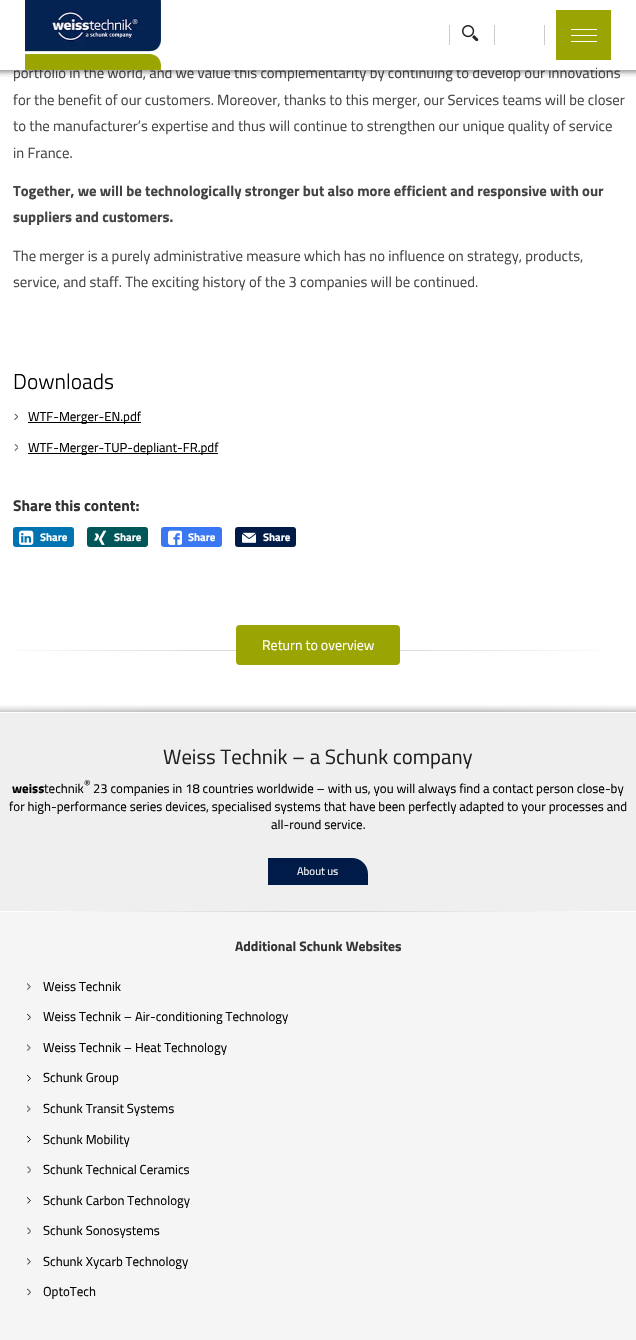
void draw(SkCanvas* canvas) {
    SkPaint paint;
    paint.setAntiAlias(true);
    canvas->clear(0xFFFFFFFF);
    SkFont font1(fontMgr->matchFamilyStyle("Titillium Web", SkFontStyle::Normal()), 14.75f);
    font1.setSubpixel(true);
    paint.setColor(0xFF444444);
    canvas->drawString("portfolio in the world, and we value this complementarity by continuing to develop our innovations", 13, 78, font1, paint);
    paint.setColor(0xFFFFFFFF);
    canvas->drawRect(SkRect::MakeXYWH(34, 67, 562, 3), paint);
    canvas->drawImageRect(SkImages::DeferredFromEncodedData(SkData::MakeFromFileName("img1.png")), SkRect::MakeXYWH(25, 0, 136, 70), SkSamplingOptions());
    paint.setColor(0xFFCCCCCC);
    canvas->drawRect(SkRect::MakeXYWH(449, 25, 1, 20), paint);
    canvas->drawImageRect(SkImages::DeferredFromEncodedData(SkData::MakeFromFileName("img2.png")), SkRect::MakeXYWH(462, 25, 17, 16), SkSamplingOptions());
    canvas->drawRect(SkRect::MakeXYWH(544, 25, 1, 20), paint);
    canvas->drawRect(SkRect::MakeXYWH(494, 25, 1, 20), paint);
    paint.setColor(0xFF9AA403);
    canvas->drawRect(SkRect::MakeXYWH(556, 10, 55, 50), paint);
    paint.setColor(0xFFFFFFFF);
    canvas->drawRect(SkRect::MakeXYWH(571, 29, 26, 1), paint);
    canvas->drawRect(SkRect::MakeXYWH(571, 35, 26, 1), paint);
    canvas->drawRect(SkRect::MakeXYWH(571, 41, 26, 1), paint);
    canvas->drawImageRect(SkImages::DeferredFromEncodedData(SkData::MakeFromFileName("img4.png")), SkRect::MakeXYWH(0, 70, 636, 4), SkSamplingOptions());
    canvas->drawImageRect(SkImages::DeferredFromEncodedData(SkData::MakeFromFileName("img3.png")), SkRect::MakeXYWH(0, 70, 636, 7), SkSamplingOptions());
    paint.setColor(0xFF444444);
    canvas->drawString("for the benefit of our customers. Moreover, thanks to this merger, our Services teams will be closer", 13, 105, font1, paint);
    canvas->drawString("to the manufacturer’s expertise and thus will continue to strengthen our unique quality of service", 13, 131, font1, paint);
    canvas->drawString("in France.", 13, 158, font1, paint);
    SkFont font2(fontMgr->matchFamilyStyle("Titillium Web", SkFontStyle::Bold()), 14.75f);
    font2.setSubpixel(true);
    canvas->drawString("Together, we will be technologically stronger but also more efficient and responsive with our", 13, 196, font2, paint);
    canvas->drawString("suppliers and customers.", 13, 222, font2, paint);
    canvas->drawString("The merger is a purely administrative measure which has no influence on strategy, products,", 13, 261, font1, paint);
    canvas->drawString("service, and staff. The exciting history of the 3 companies will be continued.", 13, 287, font1, paint);
    SkFont font3(fontMgr->matchFamilyStyle("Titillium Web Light", SkFontStyle(300, SkFontStyle::kNormal_Width, SkFontStyle::kUpright_Slant)), 21.5f);
    font3.setSubpixel(true);
    paint.setColor(0xFF000000);
    canvas->drawString("Downloads", 13, 389, font3, paint);
    canvas->drawImageRect(SkImages::DeferredFromEncodedData(SkData::MakeFromFileName("img5.png")), SkRect::MakeXYWH(14, 413, 4, 8), SkSamplingOptions());
    canvas->drawRect(SkRect::MakeXYWH(28, 422, 113, 1), paint);
    SkFont font4(fontMgr->matchFamilyStyle("Titillium Web", SkFontStyle::Normal()), 13);
    font4.setSubpixel(true);
    canvas->drawString("WTF-Merger-EN.pdf", 28, 421, font4, paint);
    canvas->drawImageRect(SkImages::DeferredFromEncodedData(SkData::MakeFromFileName("img6.png")), SkRect::MakeXYWH(14, 444, 4, 7), SkSamplingOptions());
    canvas->drawRect(SkRect::MakeXYWH(28, 453, 190, 1), paint);
    canvas->drawString("WTF-Merger-TUP-depliant-FR.pdf", 28, 452, font4, paint);
    SkFont font5(fontMgr->matchFamilyStyle("Titillium Web", SkFontStyle::Bold()), 15.5f);
    font5.setSubpixel(true);
    paint.setColor(0xFF333333);
    canvas->drawString("Share this content:", 13, 511, font5, paint);
    paint.setColor(0xFF0073B1);
    canvas->drawRoundRect(SkRect::MakeXYWH(13, 527, 61, 20), 3, 3, paint);
    canvas->drawImageRect(SkImages::DeferredFromEncodedData(SkData::MakeFromFileName("img7.png")), SkRect::MakeXYWH(19, 530, 15, 15), SkSamplingOptions());
    SkFont font6(fontMgr->matchFamilyStyle("Titillium Web", SkFontStyle::Bold()), 11);
    font6.setSubpixel(true);
    paint.setColor(0xFFFFFFFF);
    canvas->drawString("Share", 40, 541, font6, paint);
    paint.setColor(0xFF005658);
    canvas->drawRoundRect(SkRect::MakeXYWH(87, 527, 61, 20), 3, 3, paint);
    canvas->drawImageRect(SkImages::DeferredFromEncodedData(SkData::MakeFromFileName("img8.png")), SkRect::MakeXYWH(94, 530, 13, 15), SkSamplingOptions());
    paint.setColor(0xFFFFFFFF);
    canvas->drawString("Share", 114, 541, font6, paint);
    paint.setColor(0xFF3A77F2);
    canvas->drawRoundRect(SkRect::MakeXYWH(161, 527, 61, 20), 3, 3, paint);
    canvas->drawImageRect(SkImages::DeferredFromEncodedData(SkData::MakeFromFileName("img9.png")), SkRect::MakeXYWH(168, 530, 14, 15), SkSamplingOptions());
    paint.setColor(0xFFFFFFFF);
    canvas->drawString("Share", 188, 541, font6, paint);
    paint.setColor(0xFF001B47);
    canvas->drawRoundRect(SkRect::MakeXYWH(235, 527, 61, 20), 3, 3, paint);
    canvas->drawImageRect(SkImages::DeferredFromEncodedData(SkData::MakeFromFileName("img10.png")), SkRect::MakeXYWH(242, 532, 14, 11), SkSamplingOptions());
    paint.setColor(0xFFFFFFFF);
    canvas->drawString("Share", 263, 541, font6, paint);
    canvas->drawImageRect(SkImages::DeferredFromEncodedData(SkData::MakeFromFileName("img11.png")), SkRect::MakeXYWH(13, 650, 586, 1), SkSamplingOptions());
    paint.setColor(0xFF9AA403);
    canvas->drawRoundRect(SkRect::MakeXYWH(236, 625, 164, 40), 4, 4, paint);
    SkFont font7(fontMgr->matchFamilyStyle("Titillium Web", SkFontStyle::Normal()), 14);
    font7.setSubpixel(true);
    paint.setColor(0xFFFFFFFF);
    canvas->drawString("Return to overview", 262, 650, font7, paint);
    canvas->drawImageRect(SkImages::DeferredFromEncodedData(SkData::MakeFromFileName("img12.png")), SkRect::MakeXYWH(0, 705, 636, 7), SkSamplingOptions());
    paint.setColor(0xFFEFEFEF);
    canvas->drawRect(SkRect::MakeXYWH(0, 713, 636, 198), paint);
    SkFont font8(fontMgr->matchFamilyStyle("Titillium Web", SkFontStyle::Normal()), 20.75f);
    font8.setSubpixel(true);
    paint.setColor(0xFF1F1F1F);
    canvas->drawString("Weiss Technik – a Schunk company", 163, 764, font8, paint);
    SkFont font9(fontMgr->matchFamilyStyle("Titillium Web", SkFontStyle::Bold()), 13);
    font9.setSubpixel(true);
    paint.setColor(0xFF000000);
    canvas->drawString("weiss", 12, 793, font9, paint);
    canvas->drawString("technik", 44, 793, font4, paint);
    SkFont font10(fontMgr->matchFamilyStyle("Titillium Web", SkFontStyle::Normal()), 10);
    font10.setSubpixel(true);
    canvas->drawString("®", 84, 787, font10, paint);
    canvas->drawString("23 companies in 18 countries worldwide – with us, you will always find a contact person close-by", 93, 793, font4, paint);
    canvas->drawString("for high-performance series devices, specialised systems that have been perfectly adapted to your processes and", 9, 811, font4, paint);
    canvas->drawString("all-round service.", 271, 829, font4, paint);
    paint.setColor(0xFF001B47);
    canvas->drawPath(SkPathBuilder().moveTo(268, 858).lineTo(352, 858).cubicTo(361, 858, 368, 865, 368, 874).lineTo(368, 885).lineTo(268, 885).close().detach(), paint);
    SkFont font11(fontMgr->matchFamilyStyle("Titillium Web", SkFontStyle::Normal()), 11);
    font11.setSubpixel(true);
    paint.setColor(0xFFFFFFFF);
    canvas->drawString("About us", 297, 875, font11, paint);
    {
        const SkColor colors[] = {0xFFFFFFFF, 0xFFD6D6D6, 0xFFD6D6D6, 0xFFFFFFFF};
        const float stops[] = {0, 0.45f, 0.55f, 1};
        const SkPoint ends[] = {{13, 912}, {623, 912}};
        paint.setShader(SkGradientShader::MakeLinear(ends, colors, stops, 4, SkTileMode::kClamp));
        paint.setAlpha(255);
    }
    canvas->drawRect(SkRect::MakeXYWH(30, 911, 576, 1), paint);
    paint.setShader(nullptr);
    paint.setColor(0xFFF5F5F5);
    canvas->drawRect(SkRect::MakeXYWH(0, 912, 636, 428), paint);
    SkFont font12(fontMgr->matchFamilyStyle("Titillium Web", SkFontStyle::Bold()), 13.75f);
    font12.setSubpixel(true);
    paint.setColor(0xFF333333);
    canvas->drawString("Additional Schunk Websites", 235, 951, font12, paint);
    canvas->drawImageRect(SkImages::DeferredFromEncodedData(SkData::MakeFromFileName("img13.png")), SkRect::MakeXYWH(27, 983, 4, 7), SkSamplingOptions());
    paint.setColor(0xFF000000);
    canvas->drawString("Weiss Technik", 43, 991, font4, paint);
    canvas->drawImageRect(SkImages::DeferredFromEncodedData(SkData::MakeFromFileName("img14.png")), SkRect::MakeXYWH(27, 1013, 4, 8), SkSamplingOptions());
    canvas->drawString("Weiss Technik – Air-conditioning Technology", 43, 1021, font4, paint);
    canvas->drawImageRect(SkImages::DeferredFromEncodedData(SkData::MakeFromFileName("img15.png")), SkRect::MakeXYWH(27, 1044, 4, 7), SkSamplingOptions());
    canvas->drawString("Weiss Technik – Heat Technology", 43, 1052, font4, paint);
    canvas->drawImageRect(SkImages::DeferredFromEncodedData(SkData::MakeFromFileName("img16.png")), SkRect::MakeXYWH(27, 1074, 4, 8), SkSamplingOptions());
    canvas->drawString("Schunk Group", 43, 1082, font4, paint);
    canvas->drawImageRect(SkImages::DeferredFromEncodedData(SkData::MakeFromFileName("img17.png")), SkRect::MakeXYWH(27, 1105, 4, 7), SkSamplingOptions());
    canvas->drawString("Schunk Transit Systems", 43, 1113, font4, paint);
    canvas->drawImageRect(SkImages::DeferredFromEncodedData(SkData::MakeFromFileName("img18.png")), SkRect::MakeXYWH(27, 1136, 4, 7), SkSamplingOptions());
    canvas->drawString("Schunk Mobility", 43, 1144, font4, paint);
    canvas->drawImageRect(SkImages::DeferredFromEncodedData(SkData::MakeFromFileName("img19.png")), SkRect::MakeXYWH(27, 1166, 4, 7), SkSamplingOptions());
    canvas->drawString("Schunk Technical Ceramics", 43, 1174, font4, paint);
    canvas->drawImageRect(SkImages::DeferredFromEncodedData(SkData::MakeFromFileName("img20.png")), SkRect::MakeXYWH(27, 1197, 4, 7), SkSamplingOptions());
    canvas->drawString("Schunk Carbon Technology", 43, 1205, font4, paint);
    canvas->drawImageRect(SkImages::DeferredFromEncodedData(SkData::MakeFromFileName("img21.png")), SkRect::MakeXYWH(27, 1227, 4, 7), SkSamplingOptions());
    canvas->drawString("Schunk Sonosystems", 43, 1235, font4, paint);
    canvas->drawImageRect(SkImages::DeferredFromEncodedData(SkData::MakeFromFileName("img22.png")), SkRect::MakeXYWH(27, 1258, 4, 7), SkSamplingOptions());
    canvas->drawString("Schunk Xycarb Technology", 43, 1266, font4, paint);
    canvas->drawImageRect(SkImages::DeferredFromEncodedData(SkData::MakeFromFileName("img23.png")), SkRect::MakeXYWH(27, 1288, 4, 8), SkSamplingOptions());
    canvas->drawString("OptoTech", 43, 1296, font4, paint);
}
